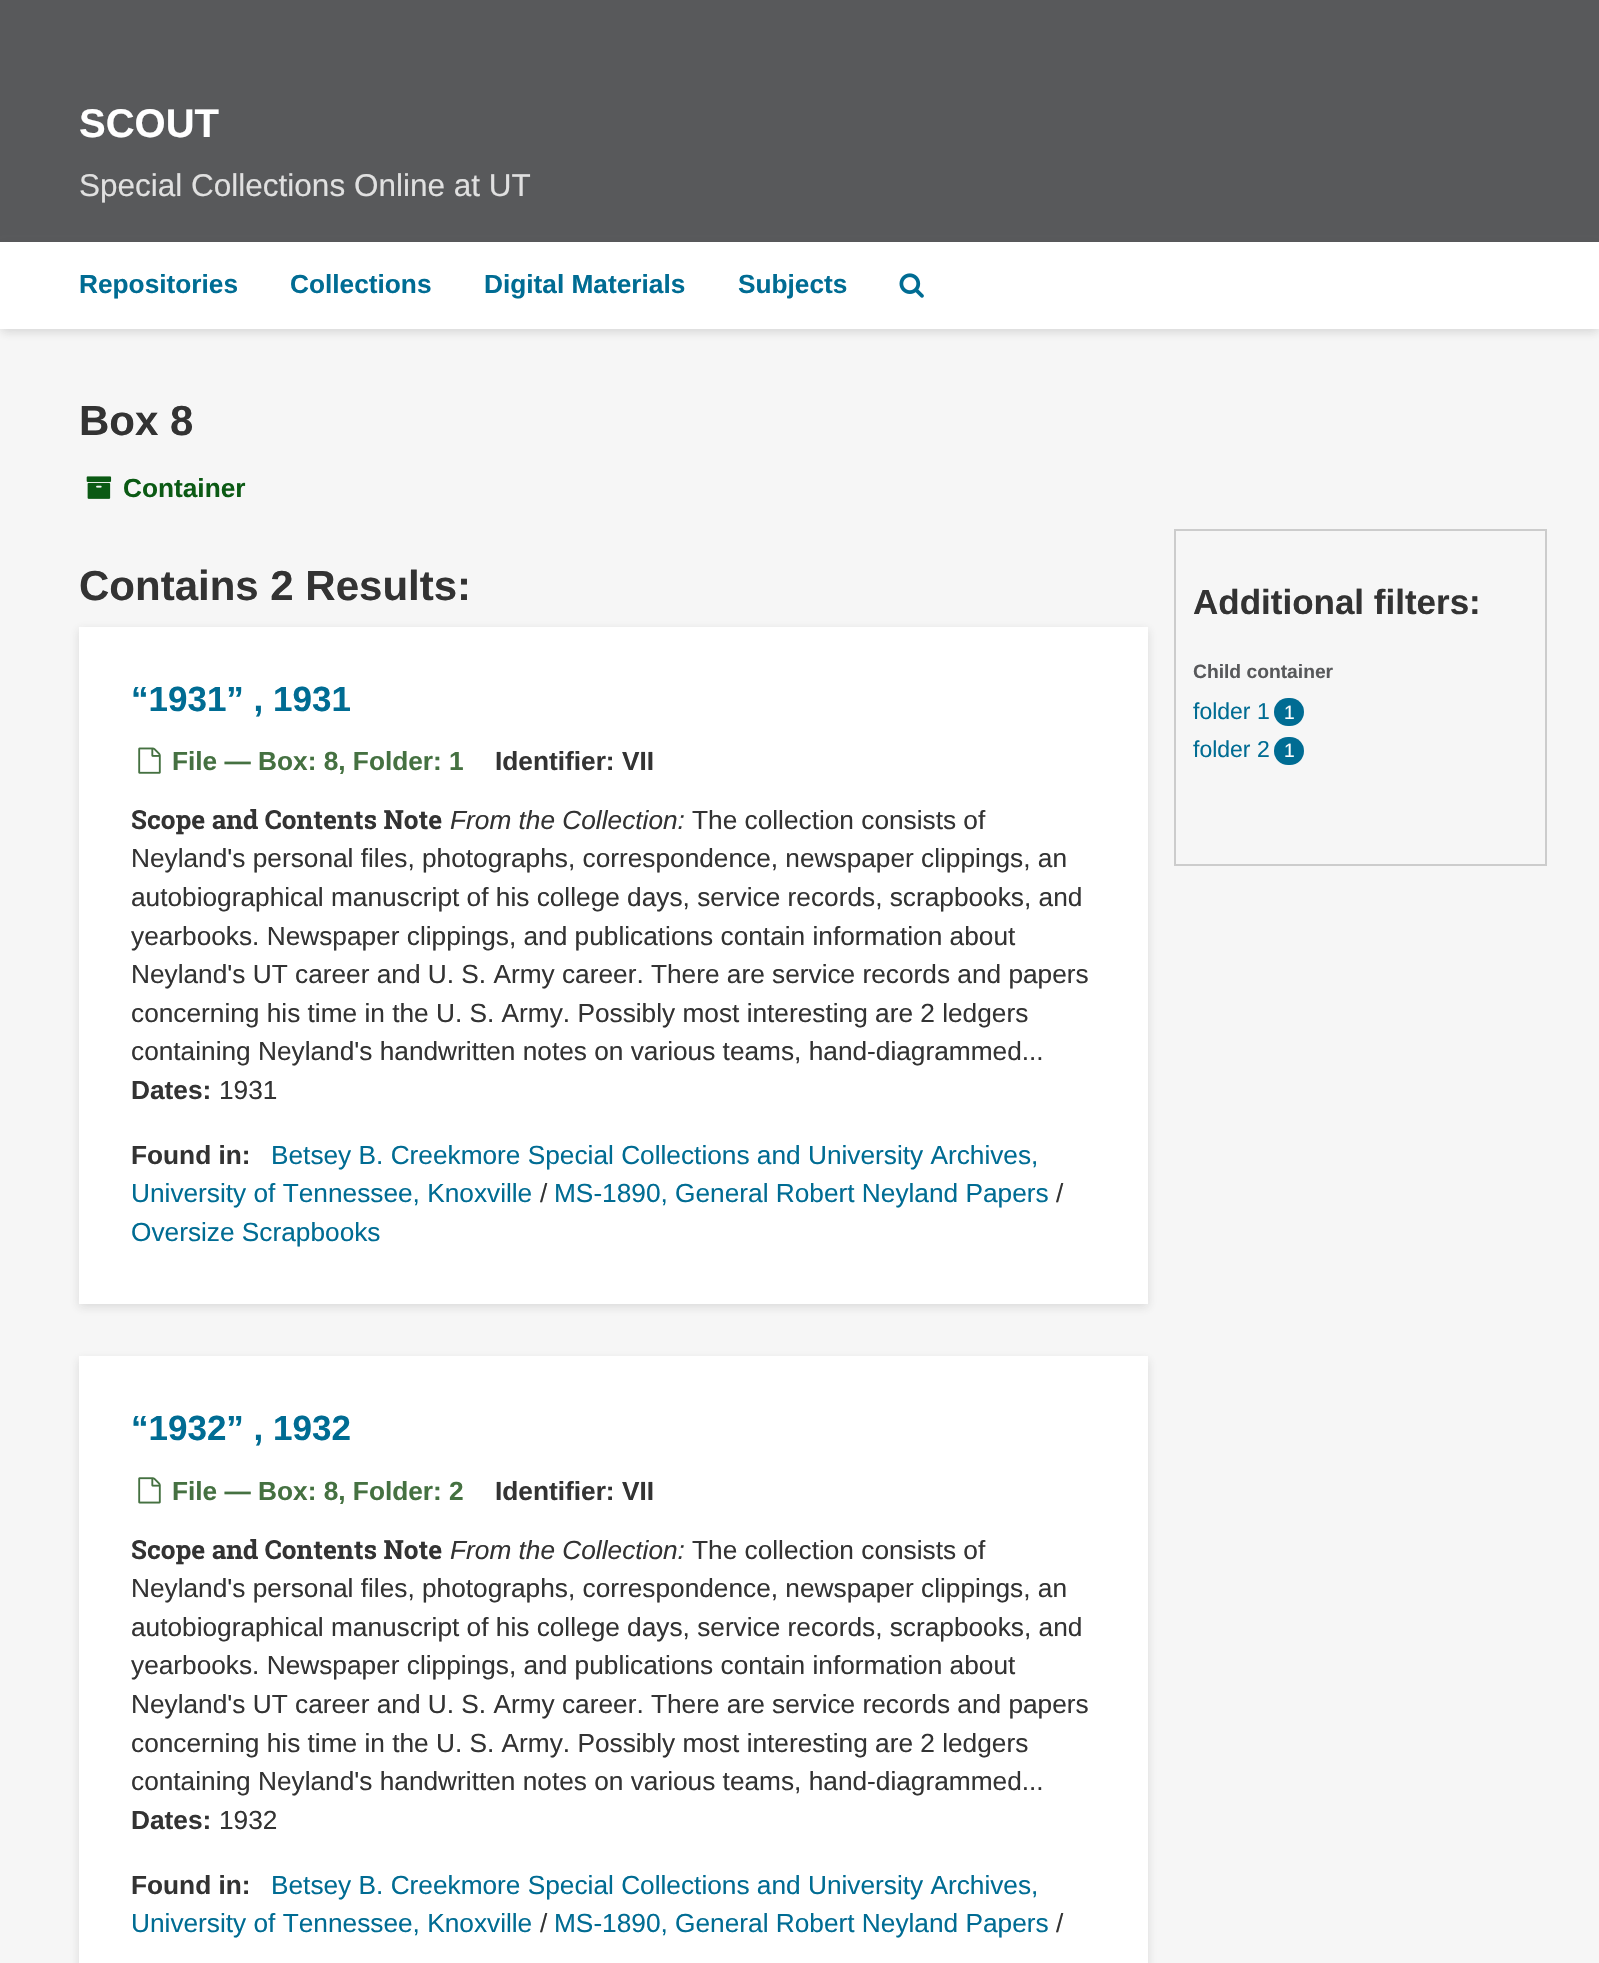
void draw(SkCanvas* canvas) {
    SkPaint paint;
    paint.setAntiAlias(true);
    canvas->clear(0xFFF6F6F6);
    paint.setColor(0xFF58595B);
    canvas->drawRect(SkRect::MakeXYWH(0, 0, 1599, 242), paint);
    SkFont font1(fontMgr->matchFamilyStyle("Liberation Sans", SkFontStyle::Bold()), 40);
    font1.setSubpixel(true);
    paint.setColor(0xFFFFFFFF);
    canvas->drawString("SCOUT", 79, 137, font1, paint);
    SkFont font2(fontMgr->matchFamilyStyle("Liberation Sans", SkFontStyle::Normal()), 31.5f);
    font2.setSubpixel(true);
    paint.setColor(0xFFE0E0E0);
    canvas->drawString("Special Collections Online at UT", 79, 196, font2, paint);
    paint.setColor(0x26333333);
    paint.setMaskFilter(SkMaskFilter::MakeBlur(kNormal_SkBlurStyle, 4.5f));
    canvas->drawRoundRect(SkRect::MakeXYWH(0, 245, 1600, 88), 7, 7, paint);
    paint.setMaskFilter(nullptr);
    paint.setColor(0xFFFFFFFF);
    canvas->drawRect(SkRect::MakeXYWH(0, 242, 1599, 87), paint);
    SkFont font3(fontMgr->matchFamilyStyle("Liberation Sans", SkFontStyle::Bold()), 26.25f);
    font3.setSubpixel(true);
    paint.setColor(0xFF006C93);
    canvas->drawString("Repositories", 79, 293, font3, paint);
    canvas->drawString("Collections", 290, 293, font3, paint);
    canvas->drawString("Digital Materials", 484, 293, font3, paint);
    canvas->drawString("Subjects", 738, 293, font3, paint);
    canvas->drawImageRect(SkImages::DeferredFromEncodedData(SkData::MakeFromFileName("img1.png")), SkRect::MakeXYWH(899, 273, 25, 25), SkSamplingOptions());
    SkFont font4(fontMgr->matchFamilyStyle("Liberation Sans", SkFontStyle::Bold()), 42);
    font4.setSubpixel(true);
    paint.setColor(0xFF333333);
    canvas->drawString("Box 8", 79, 435, font4, paint);
    canvas->drawImageRect(SkImages::DeferredFromEncodedData(SkData::MakeFromFileName("img2.png")), SkRect::MakeXYWH(86, 476, 26, 23), SkSamplingOptions());
    paint.setColor(0xFF0B5A14);
    canvas->drawString("Container", 123, 497, font3, paint);
    paint.setColor(0xFF333333);
    canvas->drawString("Contains 2 Results:", 79, 600, font4, paint);
    paint.setColor(0x26333333);
    paint.setMaskFilter(SkMaskFilter::MakeBlur(kNormal_SkBlurStyle, 4.5f));
    canvas->drawRect(SkRect::MakeXYWH(79, 630, 1069, 677), paint);
    paint.setMaskFilter(nullptr);
    paint.setColor(0xFFFFFFFF);
    canvas->drawRect(SkRect::MakeXYWH(79, 627, 1069, 677), paint);
    SkFont font5(fontMgr->matchFamilyStyle("Liberation Sans", SkFontStyle::Bold()), 35);
    font5.setSubpixel(true);
    paint.setColor(0xFF006C93);
    canvas->drawString("“1931” , 1931", 131, 711, font5, paint);
    canvas->drawImageRect(SkImages::DeferredFromEncodedData(SkData::MakeFromFileName("img3.png")), SkRect::MakeXYWH(138, 747, 23, 27), SkSamplingOptions());
    paint.setColor(0xFF457141);
    canvas->drawString("File — Box: 8, Folder: 1", 172, 770, font3, paint);
    paint.setColor(0xFF333333);
    canvas->drawString("Identifier: VII", 495, 770, font3, paint);
    SkFont font6(fontMgr->matchFamilyStyle("Roboto Slab", SkFontStyle::Bold()), 26.25f);
    font6.setSubpixel(true);
    canvas->drawString("Scope and Contents Note", 131, 829, font6, paint);
    SkFont font7(fontMgr->matchFamilyStyle("Liberation Sans", SkFontStyle::Italic()), 26.25f);
    font7.setSubpixel(true);
    canvas->drawString("From the Collection:", 450, 829, font7, paint);
    SkFont font8(fontMgr->matchFamilyStyle("Liberation Sans", SkFontStyle::Normal()), 26.25f);
    font8.setSubpixel(true);
    canvas->drawString("The collection consists of", 692, 829, font8, paint);
    canvas->drawString("Neyland's personal files, photographs, correspondence, newspaper clippings, an", 131, 867, font8, paint);
    canvas->drawString("autobiographical manuscript of his college days, service records, scrapbooks, and", 131, 906, font8, paint);
    canvas->drawString("yearbooks. Newspaper clippings, and publications contain information about", 131, 945, font8, paint);
    canvas->drawString("Neyland's UT career and U. S. Army career. There are service records and papers", 131, 983, font8, paint);
    canvas->drawString("concerning his time in the U. S. Army. Possibly most interesting are 2 ledgers", 131, 1022, font8, paint);
    canvas->drawString("containing Neyland's handwritten notes on various teams, hand-diagrammed...", 131, 1060, font8, paint);
    canvas->drawString("Dates:", 131, 1099, font3, paint);
    canvas->drawString("1931", 219, 1099, font8, paint);
    canvas->drawString("Found in:", 131, 1164, font3, paint);
    paint.setColor(0xFF006C93);
    canvas->drawString("Betsey B. Creekmore Special Collections and University Archives,", 271, 1164, font8, paint);
    canvas->drawString("University of Tennessee, Knoxville", 131, 1202, font8, paint);
    paint.setColor(0xFF333333);
    canvas->drawString("/", 540, 1202, font8, paint);
    paint.setColor(0xFF006C93);
    canvas->drawString("MS-1890, General Robert Neyland Papers", 554, 1202, font8, paint);
    paint.setColor(0xFF333333);
    canvas->drawString("/", 1056, 1202, font8, paint);
    paint.setColor(0xFF006C93);
    canvas->drawString("Oversize Scrapbooks", 131, 1241, font8, paint);
    paint.setColor(0x26333333);
    paint.setMaskFilter(SkMaskFilter::MakeBlur(kNormal_SkBlurStyle, 4.5f));
    canvas->drawRect(SkRect::MakeXYWH(79, 1360, 1069, 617), paint);
    paint.setMaskFilter(nullptr);
    paint.setColor(0xFFFFFFFF);
    canvas->drawRect(SkRect::MakeXYWH(79, 1356, 1069, 607), paint);
    paint.setColor(0xFF006C93);
    canvas->drawString("“1932” , 1932", 131, 1440, font5, paint);
    canvas->drawImageRect(SkImages::DeferredFromEncodedData(SkData::MakeFromFileName("img4.png")), SkRect::MakeXYWH(138, 1477, 23, 27), SkSamplingOptions());
    paint.setColor(0xFF457141);
    canvas->drawString("File — Box: 8, Folder: 2", 172, 1500, font3, paint);
    paint.setColor(0xFF333333);
    canvas->drawString("Identifier: VII", 495, 1500, font3, paint);
    canvas->drawString("Scope and Contents Note", 131, 1559, font6, paint);
    canvas->drawString("From the Collection:", 450, 1559, font7, paint);
    canvas->drawString("The collection consists of", 692, 1559, font8, paint);
    canvas->drawString("Neyland's personal files, photographs, correspondence, newspaper clippings, an", 131, 1597, font8, paint);
    canvas->drawString("autobiographical manuscript of his college days, service records, scrapbooks, and", 131, 1636, font8, paint);
    canvas->drawString("yearbooks. Newspaper clippings, and publications contain information about", 131, 1674, font8, paint);
    canvas->drawString("Neyland's UT career and U. S. Army career. There are service records and papers", 131, 1713, font8, paint);
    canvas->drawString("concerning his time in the U. S. Army. Possibly most interesting are 2 ledgers", 131, 1752, font8, paint);
    canvas->drawString("containing Neyland's handwritten notes on various teams, hand-diagrammed...", 131, 1790, font8, paint);
    canvas->drawString("Dates:", 131, 1829, font3, paint);
    canvas->drawString("1932", 219, 1829, font8, paint);
    canvas->drawString("Found in:", 131, 1894, font3, paint);
    paint.setColor(0xFF006C93);
    canvas->drawString("Betsey B. Creekmore Special Collections and University Archives,", 271, 1894, font8, paint);
    canvas->drawString("University of Tennessee, Knoxville", 131, 1932, font8, paint);
    paint.setColor(0xFF333333);
    canvas->drawString("/", 540, 1932, font8, paint);
    paint.setColor(0xFF006C93);
    canvas->drawString("MS-1890, General Robert Neyland Papers", 554, 1932, font8, paint);
    paint.setColor(0xFF333333);
    canvas->drawString("/", 1056, 1932, font8, paint);
    paint.setStyle(SkPaint::kStroke_Style);
    paint.setStrokeWidth(2);
    paint.setColor(0xFFCCCCCC);
    canvas->drawRect(SkRect::MakeXYWH(1175, 530, 371, 335), paint);
    paint.setStyle(SkPaint::kFill_Style);
    paint.setColor(0xFF333333);
    canvas->drawString("Additional filters:", 1193, 614, font5, paint);
    SkFont font9(fontMgr->matchFamilyStyle("Liberation Sans", SkFontStyle::Bold()), 19.25f);
    font9.setSubpixel(true);
    paint.setColor(0xFF58595B);
    canvas->drawString("Child container", 1193, 678, font9, paint);
    SkFont font10(fontMgr->matchFamilyStyle("Liberation Sans", SkFontStyle::Normal()), 23);
    font10.setSubpixel(true);
    paint.setColor(0xFF006C93);
    canvas->drawString("folder 1", 1193, 719, font10, paint);
    canvas->drawRoundRect(SkRect::MakeXYWH(1274, 698, 30, 28), 14, 14, paint);
    SkFont font11(fontMgr->matchFamilyStyle("Liberation Sans", SkFontStyle::Normal()), 19.25f);
    font11.setSubpixel(true);
    paint.setColor(0xFFFFFFFF);
    canvas->drawString("1", 1284, 719, font11, paint);
    paint.setColor(0xFF006C93);
    canvas->drawString("folder 2", 1193, 757, font10, paint);
    canvas->drawRoundRect(SkRect::MakeXYWH(1274, 737, 30, 28), 14, 14, paint);
    paint.setColor(0xFFFFFFFF);
    canvas->drawString("1", 1284, 757, font11, paint);
}
